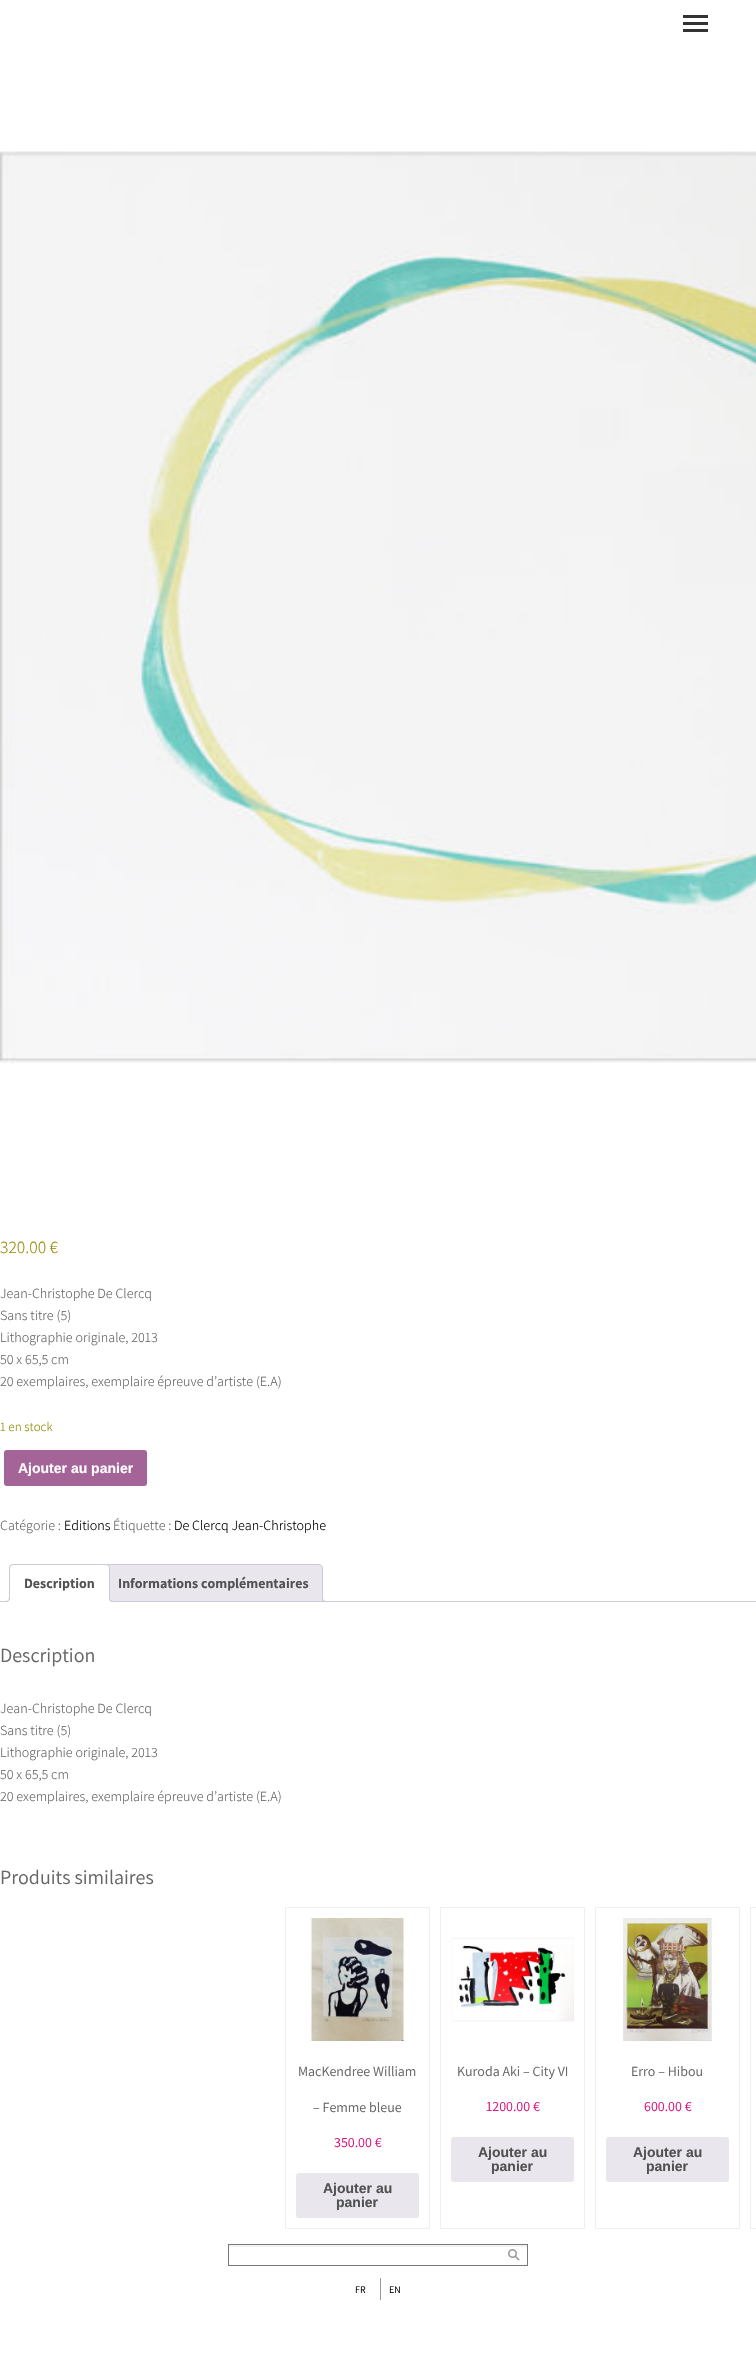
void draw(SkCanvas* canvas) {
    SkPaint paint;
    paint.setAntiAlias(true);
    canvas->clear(0xFFFFFFFF);
    paint.setColor(0xFF333333);
    canvas->drawRect(SkRect::MakeXYWH(683, 15, 25, 3), paint);
    canvas->drawRect(SkRect::MakeXYWH(683, 22, 25, 3), paint);
    canvas->drawRect(SkRect::MakeXYWH(683, 29, 25, 3), paint);
    canvas->drawImageRect(SkImages::DeferredFromEncodedData(SkData::MakeFromFileName("img1.png")), SkRect::MakeXYWH(0, 151, 756, 913), SkSamplingOptions());
    SkFont font1(fontMgr->matchFamilyStyle("Assistant", SkFontStyle(300, SkFontStyle::kNormal_Width, SkFontStyle::kUpright_Slant)), 17.5f);
    font1.setSubpixel(true);
    paint.setColor(0xFF958E09);
    canvas->drawString("320.00 €", 0, 1253, font1, paint);
    SkFont font2(fontMgr->matchFamilyStyle("Assistant", SkFontStyle(300, SkFontStyle::kNormal_Width, SkFontStyle::kUpright_Slant)), 14);
    font2.setSubpixel(true);
    paint.setColor(0xFF666666);
    canvas->drawString("Jean-Christophe De Clercq", 0, 1298, font2, paint);
    canvas->drawString("Sans titre (5)", 0, 1320, font2, paint);
    canvas->drawString("Lithographie originale, 2013", 0, 1342, font2, paint);
    canvas->drawString("50 x 65,5 cm", 0, 1364, font2, paint);
    canvas->drawString("20 exemplaires, exemplaire épreuve d’artiste (E.A)", 0, 1386, font2, paint);
    SkFont font3(fontMgr->matchFamilyStyle("Assistant", SkFontStyle(300, SkFontStyle::kNormal_Width, SkFontStyle::kUpright_Slant)), 13);
    font3.setSubpixel(true);
    paint.setColor(0xFF958E09);
    canvas->drawString("1 en stock", 0, 1431, font3, paint);
    paint.setColor(0xFFA46497);
    canvas->drawRoundRect(SkRect::MakeXYWH(4, 1450, 143, 36), 3, 3, paint);
    SkFont font4(fontMgr->matchFamilyStyle("Liberation Sans", SkFontStyle::Bold()), 14);
    font4.setSubpixel(true);
    paint.setColor(0xFFFFFFFF);
    canvas->drawString("Ajouter au panier", 18, 1473, font4, paint);
    paint.setColor(0xFF666666);
    canvas->drawString("Catégorie :", 0, 1530, font2, paint);
    paint.setColor(0xFF000000);
    canvas->drawString("Editions", 64, 1530, font2, paint);
    paint.setColor(0xFF666666);
    canvas->drawString("Étiquette :", 113, 1530, font2, paint);
    paint.setColor(0xFF000000);
    canvas->drawString("De Clercq Jean-Christophe", 174, 1530, font2, paint);
    paint.setColor(0xFFE9E6ED);
    canvas->drawPath(SkPathBuilder().moveTo(107, 1564.5f).lineTo(319, 1564.5f).cubicTo(321, 1564.5f, 322.5f, 1566, 322.5f, 1568).lineTo(322.5f, 1601.5f).lineTo(103.5f, 1601.5f).lineTo(103.5f, 1568).cubicTo(103.5f, 1566, 105, 1564.5f, 107, 1564.5f).close().detach(), paint);
    paint.setStyle(SkPaint::kStroke_Style);
    paint.setStrokeWidth(1);
    paint.setColor(0xFFCFC8D8);
    canvas->drawPath(SkPathBuilder().moveTo(107, 1564.5f).lineTo(319, 1564.5f).cubicTo(321, 1564.5f, 322.5f, 1566, 322.5f, 1568).lineTo(322.5f, 1601.5f).lineTo(103.5f, 1601.5f).lineTo(103.5f, 1568).cubicTo(103.5f, 1566, 105, 1564.5f, 107, 1564.5f).close().detach(), paint);
    canvas->save();
    canvas->clipRect(SkRect::MakeXYWH(0, 1564, 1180, 38));
    paint.setStyle(SkPaint::kFill_Style);
    paint.setColor(0xFFE9E6ED);
    canvas->drawPath(SkPathBuilder().moveTo(320, 1599).cubicTo(320, 1602.5f, 321.5f, 1604, 325, 1604).lineTo(325, 1602).cubicTo(323.5f, 1601.5f, 322.5f, 1600.5f, 322, 1599).close().detach(), paint);
    canvas->restore();
    paint.setColor(0xFFCFC8D8);
    canvas->drawPath(SkPathBuilder(SkPathFillType::kEvenOdd).moveTo(322, 1597).lineTo(327, 1597).lineTo(327, 1602).cubicTo(324.5f, 1602, 322, 1601, 322, 1598).close().moveTo(323, 1597).lineTo(327, 1597).lineTo(327, 1601).cubicTo(325, 1601, 323, 1600.5f, 323, 1598).close().detach(), paint);
    canvas->drawRect(SkRect::MakeXYWH(0, 1601, 756, 1), paint);
    paint.setColor(0xFFFFFFFF);
    canvas->drawPath(SkPathBuilder().moveTo(13, 1564).lineTo(106, 1564).cubicTo(108, 1564, 110, 1566, 110, 1568).lineTo(110, 1602).lineTo(9, 1602).lineTo(9, 1568).cubicTo(9, 1566, 11, 1564, 13, 1564).close().detach(), paint);
    paint.setColor(0xFFCFC8D8);
    canvas->drawPath(SkPathBuilder().moveTo(13, 1564).lineTo(10, 1565).lineTo(11, 1566).lineTo(13, 1565).lineTo(106, 1565).lineTo(108, 1566).lineTo(109, 1565).lineTo(106, 1564).close().detach(), paint);
    canvas->drawPath(SkPathBuilder().moveTo(110, 1602).lineTo(110, 1568).cubicTo(110, 1567, 109.5f, 1566, 109, 1565).lineTo(108, 1566).cubicTo(109, 1566, 109, 1567, 109, 1568).lineTo(109, 1601).close().detach(), paint);
    paint.setColor(0xFFFFFFFF);
    canvas->drawPath(SkPathBuilder().moveTo(110, 1602).lineTo(109, 1601).lineTo(10, 1601).lineTo(9, 1602).close().detach(), paint);
    paint.setColor(0xFFCFC8D8);
    canvas->drawPath(SkPathBuilder().moveTo(9, 1602).lineTo(10, 1601).lineTo(10, 1568).cubicTo(10, 1567, 10, 1566, 11, 1566).lineTo(10, 1565).cubicTo(9.5f, 1566, 9, 1567, 9, 1568).close().detach(), paint);
    SkFont font5(fontMgr->matchFamilyStyle("Assistant", SkFontStyle::Bold()), 14);
    font5.setSubpixel(true);
    paint.setColor(0xFF515151);
    canvas->drawString("Description", 24, 1588, font5, paint);
    canvas->save();
    canvas->clipRect(SkRect::MakeXYWH(0, 1564, 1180, 38));
    paint.setColor(0xFFFFFFFF);
    canvas->drawPath(SkPathBuilder().moveTo(7, 1602).lineTo(7, 1604).cubicTo(10.5f, 1604, 12, 1602.5f, 12, 1599).lineTo(10, 1599).cubicTo(9.5f, 1600.5f, 8.5f, 1601.5f, 7, 1602).close().detach(), paint);
    canvas->restore();
    paint.setColor(0xFFCFC8D8);
    canvas->drawPath(SkPathBuilder(SkPathFillType::kEvenOdd).moveTo(5, 1597).lineTo(10, 1597).cubicTo(10, 1600.5f, 8.5f, 1602, 5, 1602).close().moveTo(5, 1597).lineTo(9, 1597).cubicTo(9, 1600, 8, 1601, 5, 1601).close().detach(), paint);
    canvas->save();
    canvas->clipRect(SkRect::MakeXYWH(0, 1564, 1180, 38));
    paint.setColor(0xFFFFFFFF);
    canvas->drawPath(SkPathBuilder().moveTo(107, 1599).cubicTo(107, 1602.5f, 108.5f, 1604, 112, 1604).lineTo(112, 1602).cubicTo(110.5f, 1601.5f, 109.5f, 1600.5f, 109, 1599).close().detach(), paint);
    canvas->restore();
    paint.setColor(0xFFCFC8D8);
    canvas->drawPath(SkPathBuilder(SkPathFillType::kEvenOdd).moveTo(109, 1597).lineTo(114, 1597).lineTo(114, 1602).cubicTo(111.5f, 1602, 109, 1601, 109, 1598).close().moveTo(110, 1597).lineTo(114, 1597).lineTo(114, 1601).cubicTo(112, 1601, 110, 1600.5f, 110, 1598).close().detach(), paint);
    paint.setColor(0xFF515151);
    canvas->drawString("Informations complémentaires", 118, 1588, font5, paint);
    SkFont font6(fontMgr->matchFamilyStyle("Assistant", SkFontStyle::Normal()), 20);
    font6.setSubpixel(true);
    paint.setColor(0xFF666666);
    canvas->drawString("Description", 0, 1662, font6, paint);
    canvas->drawString("Jean-Christophe De Clercq", 0, 1713, font2, paint);
    canvas->drawString("Sans titre (5)", 0, 1735, font2, paint);
    canvas->drawString("Lithographie originale, 2013", 0, 1757, font2, paint);
    canvas->drawString("50 x 65,5 cm", 0, 1779, font2, paint);
    canvas->drawString("20 exemplaires, exemplaire épreuve d’artiste (E.A)", 0, 1801, font2, paint);
    canvas->drawString("Produits similaires", 0, 1884, font6, paint);
    paint.setStyle(SkPaint::kStroke_Style);
    paint.setColor(0xFFEFEFEF);
    canvas->drawRect(SkRect::MakeXYWH(285.5f, 1907.5f, 144, 321), paint);
    canvas->drawImageRect(SkImages::DeferredFromEncodedData(SkData::MakeFromFileName("img2.png")), SkRect::MakeXYWH(309, 1918, 96, 123), SkSamplingOptions());
    SkFont font7(fontMgr->matchFamilyStyle("Assistant", SkFontStyle::Normal()), 14);
    font7.setSubpixel(true);
    paint.setStyle(SkPaint::kFill_Style);
    paint.setColor(0xFF666666);
    canvas->drawString("MacKendree William", 298, 2076, font7, paint);
    canvas->drawString("– Femme bleue", 313, 2112, font7, paint);
    paint.setColor(0xFFDD1481);
    canvas->drawString("350.00 €", 334, 2147, font7, paint);
    paint.setColor(0xFFE9E6ED);
    canvas->drawRoundRect(SkRect::MakeXYWH(296, 2173, 123, 45), 3, 3, paint);
    paint.setColor(0xFF515151);
    canvas->drawString("Ajouter au", 323, 2193, font4, paint);
    canvas->drawString("panier", 336, 2207, font4, paint);
    paint.setStyle(SkPaint::kStroke_Style);
    paint.setColor(0xFFEFEFEF);
    canvas->drawRect(SkRect::MakeXYWH(440.5f, 1907.5f, 144, 321), paint);
    canvas->drawImageRect(SkImages::DeferredFromEncodedData(SkData::MakeFromFileName("img3.png")), SkRect::MakeXYWH(451, 1937, 123, 85), SkSamplingOptions());
    paint.setStyle(SkPaint::kFill_Style);
    paint.setColor(0xFF666666);
    canvas->drawString("Kuroda Aki – City VI", 457, 2076, font7, paint);
    paint.setColor(0xFFDD1481);
    canvas->drawString("1200.00 €", 486, 2111, font7, paint);
    paint.setColor(0xFFE9E6ED);
    canvas->drawRoundRect(SkRect::MakeXYWH(451, 2137, 123, 45), 3, 3, paint);
    paint.setColor(0xFF515151);
    canvas->drawString("Ajouter au", 478, 2157, font4, paint);
    canvas->drawString("panier", 491, 2171, font4, paint);
    paint.setStyle(SkPaint::kStroke_Style);
    paint.setColor(0xFFEFEFEF);
    canvas->drawRect(SkRect::MakeXYWH(595.5f, 1907.5f, 144, 321), paint);
    canvas->drawImageRect(SkImages::DeferredFromEncodedData(SkData::MakeFromFileName("img4.png")), SkRect::MakeXYWH(623, 1918, 89, 123), SkSamplingOptions());
    paint.setStyle(SkPaint::kFill_Style);
    paint.setColor(0xFF666666);
    canvas->drawString("Erro – Hibou", 631, 2076, font7, paint);
    paint.setColor(0xFFDD1481);
    canvas->drawString("600.00 €", 644, 2111, font7, paint);
    paint.setColor(0xFFE9E6ED);
    canvas->drawRoundRect(SkRect::MakeXYWH(606, 2137, 123, 45), 3, 3, paint);
    paint.setColor(0xFF515151);
    canvas->drawString("Ajouter au", 633, 2157, font4, paint);
    canvas->drawString("panier", 646, 2171, font4, paint);
    paint.setStyle(SkPaint::kStroke_Style);
    paint.setColor(0xFFEFEFEF);
    canvas->drawRect(SkRect::MakeXYWH(750.5f, 1907.5f, 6, 321), paint);
    paint.setStyle(SkPaint::kFill_Style);
    paint.setColor(0xFFF2F2F2);
    canvas->drawRect(SkRect::MakeXYWH(229, 2245, 298, 2), paint);
    paint.setStyle(SkPaint::kStroke_Style);
    paint.setColor(0xFF787878);
    canvas->drawRect(SkRect::MakeXYWH(228.5f, 2244.5f, 299, 21), paint);
    canvas->drawImageRect(SkImages::DeferredFromEncodedData(SkData::MakeFromFileName("img5.png")), SkRect::MakeXYWH(508, 2249, 12, 12), SkSamplingOptions());
    SkFont font8(fontMgr->matchFamilyStyle("Assistant", SkFontStyle::Normal()), 10);
    font8.setSubpixel(true);
    paint.setStyle(SkPaint::kFill_Style);
    paint.setColor(0xFF000000);
    canvas->drawString("FR", 355, 2293, font8, paint);
    paint.setColor(0xFF999999);
    canvas->drawRect(SkRect::MakeXYWH(380, 2278, 1, 22), paint);
    paint.setColor(0xFF000000);
    canvas->drawString("EN", 389, 2293, font8, paint);
}
